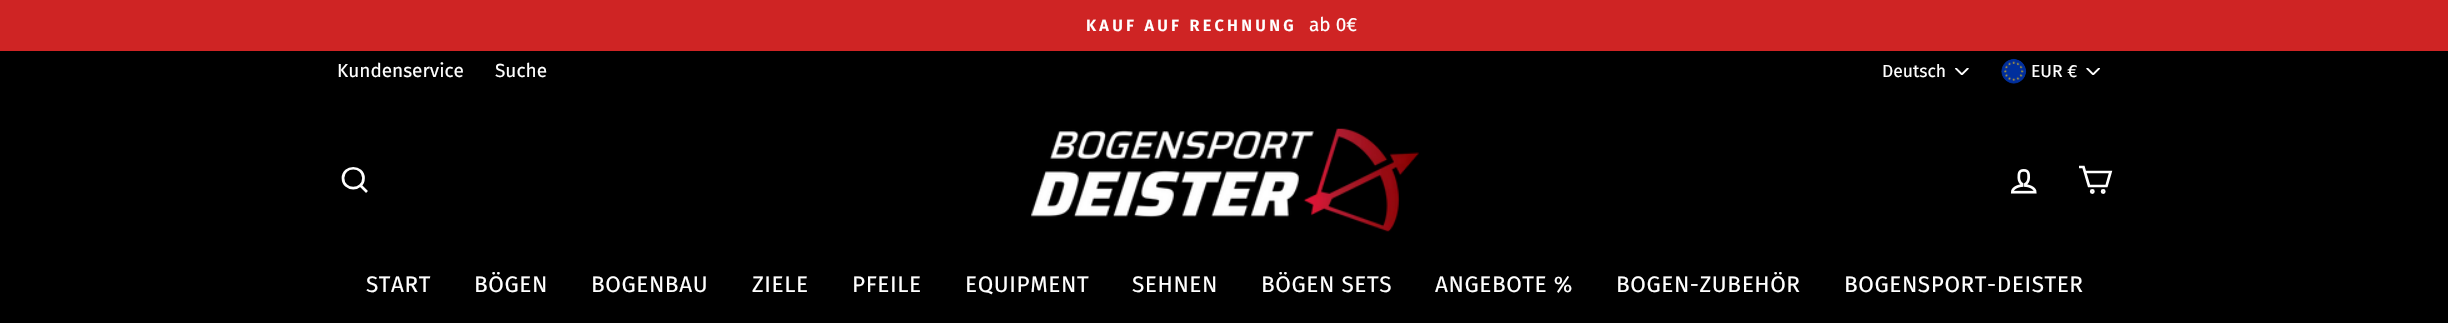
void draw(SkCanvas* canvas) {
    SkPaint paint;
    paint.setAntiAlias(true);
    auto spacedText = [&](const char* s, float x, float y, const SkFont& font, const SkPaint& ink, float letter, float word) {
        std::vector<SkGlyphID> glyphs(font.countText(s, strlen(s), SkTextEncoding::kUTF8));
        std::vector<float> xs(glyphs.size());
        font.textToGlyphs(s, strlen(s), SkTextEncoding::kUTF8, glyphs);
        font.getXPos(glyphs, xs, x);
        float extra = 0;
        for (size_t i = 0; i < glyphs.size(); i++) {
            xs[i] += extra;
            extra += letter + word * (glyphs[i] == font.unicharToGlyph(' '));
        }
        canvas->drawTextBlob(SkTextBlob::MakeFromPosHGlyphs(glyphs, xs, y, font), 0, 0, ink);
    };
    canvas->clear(0xFF000000);
    paint.setColor(0xFFCF2424);
    canvas->drawRect(SkRect::MakeXYWH(0, 0, 2448, 51), paint);
    SkFont font1(fontMgr->matchFamilyStyle("Fira Sans", SkFontStyle(600, SkFontStyle::kNormal_Width, SkFontStyle::kUpright_Slant)), 16.25f);
    font1.setSubpixel(true);
    paint.setColor(0xFFFFFFFF);
    spacedText("KAUF AUF RECHNUNG", 1086, 31, font1, paint, 3.25f, 0);
    SkFont font2(fontMgr->matchFamilyStyle("Fira Sans", SkFontStyle::Normal()), 19);
    font2.setSubpixel(true);
    canvas->drawString("ab 0€", 1309, 31, font2, paint);
    canvas->drawString("Kundenservice", 337, 77, font2, paint);
    canvas->drawString("Suche", 495, 77, font2, paint);
    canvas->drawImageRect(SkImages::DeferredFromEncodedData(SkData::MakeFromFileName("img1.png")), SkRect::MakeXYWH(1955, 68, 14, 7), SkSamplingOptions());
    SkFont font3(fontMgr->matchFamilyStyle("Fira Sans", SkFontStyle::Normal()), 17.5f);
    font3.setSubpixel(true);
    canvas->drawString("Deutsch", 1882, 77, font3, paint);
    canvas->drawImageRect(SkImages::DeferredFromEncodedData(SkData::MakeFromFileName("img2.png")), SkRect::MakeXYWH(2086, 68, 14, 7), SkSamplingOptions());
    canvas->drawImageRect(SkImages::DeferredFromEncodedData(SkData::MakeFromFileName("img3.png")), SkRect::MakeXYWH(2001, 58, 26, 26), SkSamplingOptions());
    canvas->drawString("EUR €", 2031, 77, font3, paint);
    paint.setStyle(SkPaint::kStroke_Style);
    paint.setStrokeWidth(2.7f);
    canvas->drawPath(SkPathBuilder().moveTo(363.5f, 178).cubicTo(363.5f, 191.5f, 343, 191.5f, 343, 178).cubicTo(343, 165, 363.5f, 165, 363.5f, 178).close().moveTo(367, 192).lineTo(360.5f, 185.5f).detach(), paint);
    canvas->drawImageRect(SkImages::DeferredFromEncodedData(SkData::MakeFromFileName("img4.png")), SkRect::MakeXYWH(1031, 128, 388, 104), SkSamplingOptions());
    canvas->drawImageRect(SkImages::DeferredFromEncodedData(SkData::MakeFromFileName("img5.png")), SkRect::MakeXYWH(2010, 169, 27, 25), SkSamplingOptions());
    canvas->drawPath(SkPathBuilder().moveTo(2085, 172).lineTo(2110.5f, 172).lineTo(2106.5f, 186).lineTo(2089, 186).lineTo(2083.5f, 167).lineTo(2079, 167).detach(), paint);
    canvas->drawCircle(2092.3f, 191.5f, 1.1f, paint);
    canvas->drawCircle(2103.2f, 191.5f, 1.1f, paint);
    SkFont font4(fontMgr->matchFamilyStyle("Fira Sans", SkFontStyle::Normal()), 22.5f);
    font4.setSubpixel(true);
    paint.setStyle(SkPaint::kFill_Style);
    spacedText("START", 366, 292, font4, paint, 0.6f, 0);
    spacedText("BÖGEN", 474, 292, font4, paint, 0.6f, 0);
    spacedText("BOGENBAU", 591, 292, font4, paint, 0.6f, 0);
    spacedText("ZIELE", 752, 292, font4, paint, 0.6f, 0);
    spacedText("PFEILE", 852, 292, font4, paint, 0.6f, 0);
    spacedText("EQUIPMENT", 965, 292, font4, paint, 0.6f, 0);
    spacedText("SEHNEN", 1132, 292, font4, paint, 0.6f, 0);
    spacedText("BÖGEN SETS", 1261, 292, font4, paint, 0.6f, 0);
    spacedText("ANGEBOTE %", 1435, 292, font4, paint, 0.6f, 0);
    spacedText("BOGEN-ZUBEHÖR", 1616, 292, font4, paint, 0.6f, 0);
    spacedText("BOGENSPORT-DEISTER", 1844, 292, font4, paint, 0.6f, 0);
}
